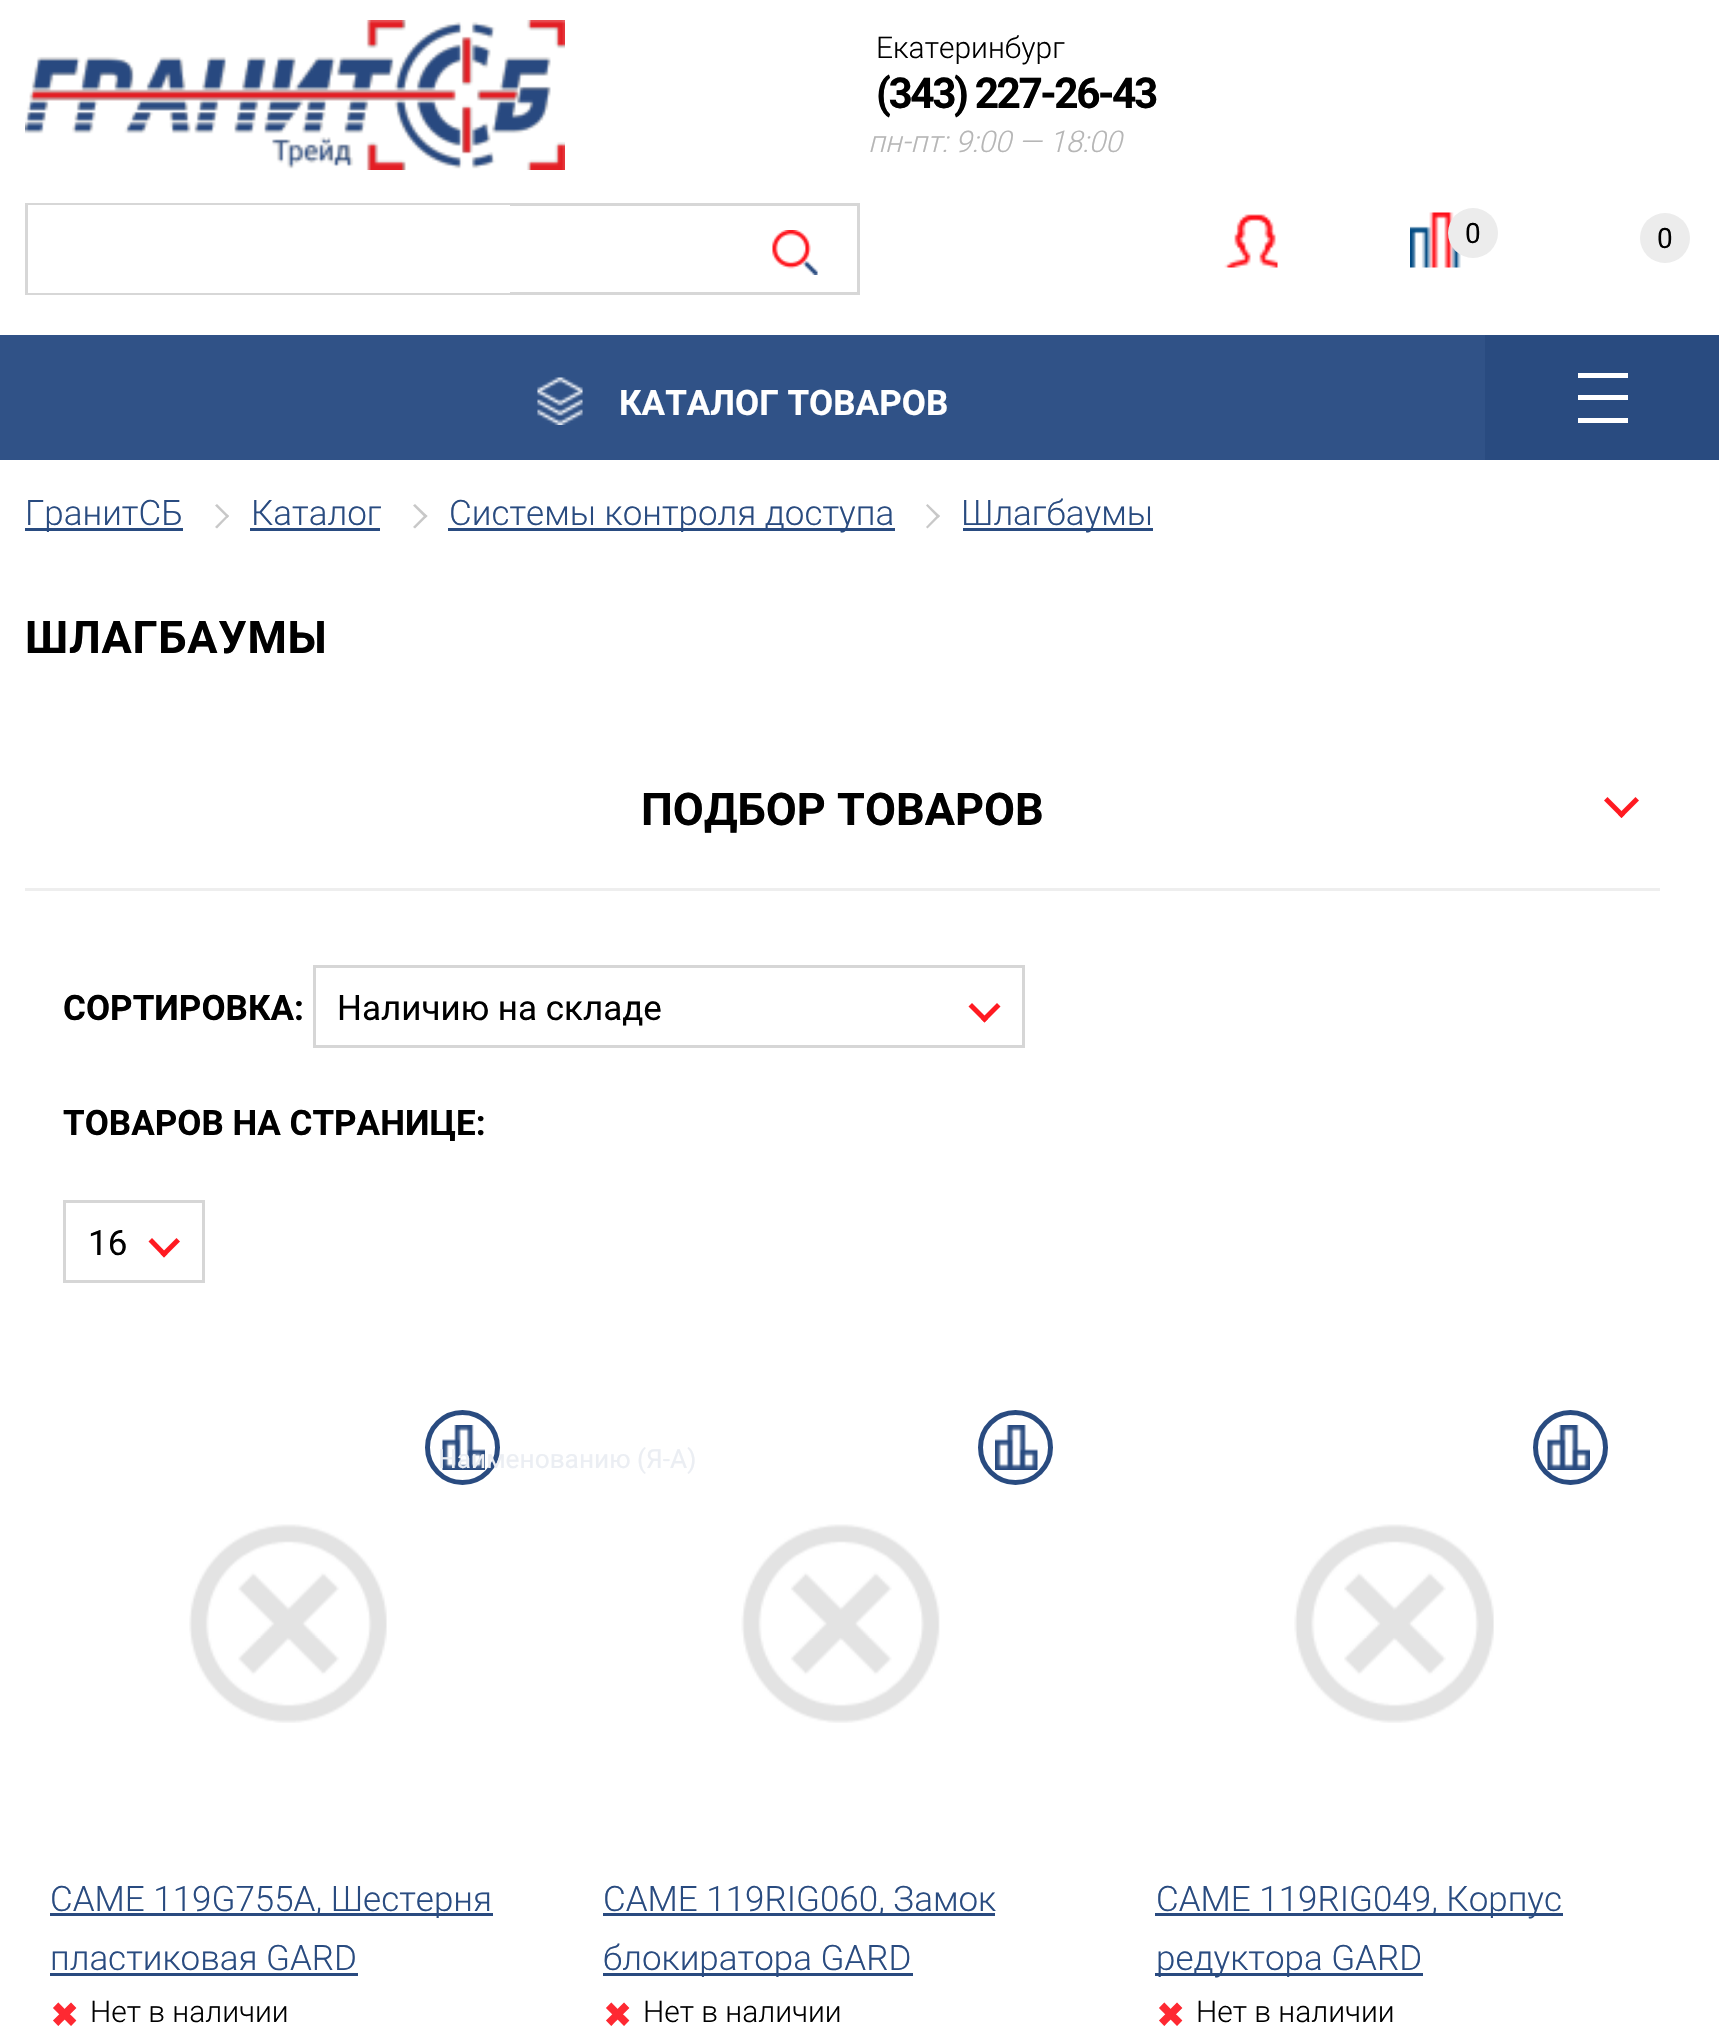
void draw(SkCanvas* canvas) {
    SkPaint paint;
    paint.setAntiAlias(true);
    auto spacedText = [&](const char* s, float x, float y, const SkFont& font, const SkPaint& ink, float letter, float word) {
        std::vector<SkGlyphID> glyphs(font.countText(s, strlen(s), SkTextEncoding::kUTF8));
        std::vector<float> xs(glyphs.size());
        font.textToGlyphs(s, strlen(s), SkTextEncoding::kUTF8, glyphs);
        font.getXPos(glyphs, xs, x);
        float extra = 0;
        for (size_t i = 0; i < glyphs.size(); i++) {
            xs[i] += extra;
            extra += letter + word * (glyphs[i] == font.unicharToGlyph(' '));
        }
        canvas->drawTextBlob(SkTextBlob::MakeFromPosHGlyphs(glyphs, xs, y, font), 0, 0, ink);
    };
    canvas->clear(0xFFFFFFFF);
    canvas->drawImageRect(SkImages::DeferredFromEncodedData(SkData::MakeFromFileName("img1.png")), SkRect::MakeXYWH(25, 20, 540, 150), SkSamplingOptions());
    SkFont font1(fontMgr->matchFamilyStyle("Roboto", SkFontStyle(300, SkFontStyle::kNormal_Width, SkFontStyle::kUpright_Slant)), 30);
    font1.setSubpixel(true);
    paint.setColor(0xFF000000);
    canvas->drawString("Екатеринбург", 876, 58, font1, paint);
    SkFont font2(fontMgr->matchFamilyStyle("Roboto", SkFontStyle::Bold()), 42.5f);
    font2.setSubpixel(true);
    spacedText("(343) 227-26-43", 876, 108, font2, paint, -2.5f, 0);
    SkFont font3(fontMgr->matchFamilyStyle("Roboto", SkFontStyle(300, SkFontStyle::kNormal_Width, SkFontStyle::kItalic_Slant)), 30);
    font3.setSubpixel(true);
    paint.setColor(0xFFB6B6B6);
    canvas->drawString("пн-пт: 9:00 — 18:00", 868, 152, font3, paint);
    paint.setStyle(SkPaint::kStroke_Style);
    paint.setStrokeWidth(3);
    paint.setColor(0xFFD7D7D7);
    canvas->drawRect(SkRect::MakeXYWH(26.5f, 204.5f, 832, 89), paint);
    paint.setStyle(SkPaint::kFill_Style);
    paint.setColor(0xFFFFFFFF);
    canvas->drawRect(SkRect::MakeXYWH(28, 205, 482, 88), paint);
    canvas->drawImageRect(SkImages::DeferredFromEncodedData(SkData::MakeFromFileName("img2.png")), SkRect::MakeXYWH(772, 230, 46, 45), SkSamplingOptions());
    canvas->drawImageRect(SkImages::DeferredFromEncodedData(SkData::MakeFromFileName("img3.png")), SkRect::MakeXYWH(1224, 214, 54, 54), SkSamplingOptions());
    canvas->drawImageRect(SkImages::DeferredFromEncodedData(SkData::MakeFromFileName("img4.png")), SkRect::MakeXYWH(1410, 212, 51, 56), SkSamplingOptions());
    paint.setColor(0xFFECECEC);
    canvas->drawCircle(1473, 233, 25, paint);
    SkFont font4(fontMgr->matchFamilyStyle("Roboto", SkFontStyle::Normal()), 28);
    font4.setSubpixel(true);
    paint.setColor(0xFF000000);
    canvas->drawString("0", 1465, 243, font4, paint);
    paint.setColor(0xFFECECEC);
    canvas->drawCircle(1665, 238, 25, paint);
    paint.setColor(0xFF000000);
    canvas->drawString("0", 1657, 248, font4, paint);
    paint.setColor(0xFF294B80);
    canvas->drawRect(SkRect::MakeXYWH(1485, 335, 234, 125), paint);
    paint.setColor(0xFF305287);
    canvas->drawRect(SkRect::MakeXYWH(0, 335, 1485, 125), paint);
    canvas->drawImageRect(SkImages::DeferredFromEncodedData(SkData::MakeFromFileName("img5.png")), SkRect::MakeXYWH(537, 377, 46, 48), SkSamplingOptions());
    SkFont font5(fontMgr->matchFamilyStyle("Roboto", SkFontStyle::Bold()), 35);
    font5.setSubpixel(true);
    paint.setColor(0xFFFFFFFF);
    canvas->drawString("КАТАЛОГ ТОВАРОВ", 619, 415, font5, paint);
    canvas->drawRect(SkRect::MakeXYWH(1578, 395, 50, 5), paint);
    canvas->drawRect(SkRect::MakeXYWH(1578, 373, 50, 5), paint);
    canvas->drawRect(SkRect::MakeXYWH(1578, 418, 50, 5), paint);
    paint.setColor(0xFF294B80);
    canvas->drawRect(SkRect::MakeXYWH(25, 528, 158, 3), paint);
    SkFont font6(fontMgr->matchFamilyStyle("Roboto", SkFontStyle(300, SkFontStyle::kNormal_Width, SkFontStyle::kUpright_Slant)), 35);
    font6.setSubpixel(true);
    canvas->drawString("ГранитСБ", 25, 525, font6, paint);
    paint.setColor(0xFFC8C8C8);
    canvas->drawPath(SkPathBuilder().moveTo(217, 504).lineTo(229, 516).lineTo(227.5f, 518).lineTo(215, 505.5f).close().detach(), paint);
    canvas->drawPath(SkPathBuilder().moveTo(227.5f, 514.5f).lineTo(229, 516).lineTo(217, 528.5f).lineTo(215, 527).close().detach(), paint);
    paint.setColor(0xFF294B80);
    canvas->drawString("Каталог", 251, 525, font6, paint);
    canvas->drawRect(SkRect::MakeXYWH(250, 528, 130, 3), paint);
    paint.setColor(0xFFC8C8C8);
    canvas->drawPath(SkPathBuilder().moveTo(415, 504).lineTo(427.5f, 516).lineTo(425.5f, 518).lineTo(413, 505.5f).close().detach(), paint);
    canvas->drawPath(SkPathBuilder().moveTo(425.5f, 514.5f).lineTo(427.5f, 516).lineTo(415, 528.5f).lineTo(413, 527).close().detach(), paint);
    paint.setColor(0xFF294B80);
    canvas->drawRect(SkRect::MakeXYWH(448, 528, 447, 3), paint);
    canvas->drawString("Системы контроля доступа", 449, 525, font6, paint);
    paint.setColor(0xFFC8C8C8);
    canvas->drawPath(SkPathBuilder().moveTo(927.5f, 504).lineTo(940, 516).lineTo(938, 518).lineTo(926, 505.5f).close().detach(), paint);
    canvas->drawPath(SkPathBuilder().moveTo(938, 514.5f).lineTo(940, 516).lineTo(927.5f, 528.5f).lineTo(926, 527).close().detach(), paint);
    paint.setColor(0xFF294B80);
    canvas->drawRect(SkRect::MakeXYWH(963, 528, 190, 3), paint);
    canvas->drawString("Шлагбаумы", 961, 525, font6, paint);
    SkFont font7(fontMgr->matchFamilyStyle("Roboto", SkFontStyle::Bold()), 45);
    font7.setSubpixel(true);
    paint.setColor(0xFF000000);
    spacedText("ШЛАГБАУМЫ", 25, 653, font7, paint, 0.75f, 0);
    paint.setColor(0xFFEEEEEE);
    canvas->drawRect(SkRect::MakeXYWH(25, 888, 1635, 3), paint);
    paint.setColor(0xFF000000);
    canvas->drawString("ПОДБОР ТОВАРОВ", 641, 825, font7, paint);
    paint.setColor(0xFFFF1A21);
    canvas->drawPath(SkPathBuilder().moveTo(1635.5f, 797).lineTo(1639, 800.5f).lineTo(1621.5f, 818).lineTo(1618, 814.5f).close().detach(), paint);
    canvas->drawPath(SkPathBuilder().moveTo(1607.5f, 797).lineTo(1625, 814.5f).lineTo(1621.5f, 818).lineTo(1604, 800.5f).close().detach(), paint);
    paint.setColor(0xFF000000);
    canvas->drawString("СОРТИРОВКА:", 63, 1020, font5, paint);
    paint.setStyle(SkPaint::kStroke_Style);
    paint.setColor(0xFFD6D6D6);
    canvas->drawRect(SkRect::MakeXYWH(314.5f, 966.5f, 709, 80), paint);
    SkFont font8(fontMgr->matchFamilyStyle("Roboto", SkFontStyle::Normal()), 35);
    font8.setSubpixel(true);
    paint.setStyle(SkPaint::kFill_Style);
    paint.setColor(0xFF000000);
    canvas->drawString("Наличию на складе", 337, 1020, font8, paint);
    paint.setColor(0xFFFF1A21);
    canvas->drawPath(SkPathBuilder().moveTo(997, 1003).lineTo(1000.5f, 1006.5f).lineTo(984.5f, 1022.5f).lineTo(981, 1019).close().detach(), paint);
    canvas->drawPath(SkPathBuilder().moveTo(972, 1003).lineTo(988, 1019).lineTo(984.5f, 1022.5f).lineTo(968.5f, 1006.5f).close().detach(), paint);
    canvas->drawImageRect(SkImages::DeferredFromEncodedData(SkData::MakeFromFileName("img6.png")), SkRect::MakeXYWH(442, 1425, 43, 45), SkSamplingOptions());
    paint.setStyle(SkPaint::kStroke_Style);
    paint.setStrokeWidth(5);
    paint.setColor(0xFF294B80);
    canvas->drawCircle(462.5f, 1447.5f, 35, paint);
    SkFont font9(fontMgr->matchFamilyStyle("Roboto", SkFontStyle::Normal()), 26.25f);
    font9.setSubpixel(true);
    paint.setStyle(SkPaint::kFill_Style);
    paint.setColor(0xFFEBEEF3);
    canvas->drawString("Наименованию (Я-А)", 438, 1468, font9, paint);
    paint.setColor(0xFF000000);
    canvas->drawString("ТОВАРОВ НА СТРАНИЦЕ:", 63, 1135, font5, paint);
    paint.setStyle(SkPaint::kStroke_Style);
    paint.setStrokeWidth(3);
    paint.setColor(0xFFD6D6D6);
    canvas->drawRect(SkRect::MakeXYWH(64.5f, 1201.5f, 139, 80), paint);
    paint.setStyle(SkPaint::kFill_Style);
    paint.setColor(0xFF000000);
    canvas->drawString("16", 88, 1255, font8, paint);
    paint.setColor(0xFFFF1A21);
    canvas->drawPath(SkPathBuilder().moveTo(176.5f, 1238).lineTo(180, 1241.5f).lineTo(164, 1257.5f).lineTo(160.5f, 1254).close().detach(), paint);
    canvas->drawPath(SkPathBuilder().moveTo(152, 1238).lineTo(167.5f, 1254).lineTo(164, 1257.5f).lineTo(148.5f, 1241.5f).close().detach(), paint);
    canvas->drawImageRect(SkImages::DeferredFromEncodedData(SkData::MakeFromFileName("img7.png")), SkRect::MakeXYWH(189, 1524, 198, 199), SkSamplingOptions());
    paint.setColor(0xFF294A7F);
    canvas->drawRect(SkRect::MakeXYWH(50, 1913, 443, 3), paint);
    paint.setColor(0xFF294B80);
    canvas->drawString("CAME 119G755A, Шестерня", 50, 1911, font6, paint);
    canvas->drawString("пластиковая GARD", 50, 1970, font6, paint);
    paint.setColor(0xFF294A7F);
    canvas->drawRect(SkRect::MakeXYWH(50, 1973, 308, 3), paint);
    SkFont font10(fontMgr->matchFamilyStyle("DejaVu Sans", SkFontStyle::Normal()), 35);
    font10.setSubpixel(true);
    paint.setColor(0xFFFE2932);
    canvas->drawString("✖", 50, 2027, font10, paint);
    paint.setColor(0xFF000000);
    canvas->drawString("Нет в наличии", 90, 2022, font1, paint);
    canvas->drawImageRect(SkImages::DeferredFromEncodedData(SkData::MakeFromFileName("img8.png")), SkRect::MakeXYWH(995, 1425, 43, 45), SkSamplingOptions());
    paint.setStyle(SkPaint::kStroke_Style);
    paint.setStrokeWidth(5);
    paint.setColor(0xFF294B80);
    canvas->drawCircle(1015.5f, 1447.5f, 35, paint);
    canvas->drawImageRect(SkImages::DeferredFromEncodedData(SkData::MakeFromFileName("img9.png")), SkRect::MakeXYWH(741, 1524, 199, 199), SkSamplingOptions());
    paint.setStyle(SkPaint::kFill_Style);
    paint.setColor(0xFF294A7F);
    canvas->drawRect(SkRect::MakeXYWH(603, 1913, 392, 3), paint);
    paint.setColor(0xFF294B80);
    canvas->drawString("CAME 119RIG060, Замок", 603, 1911, font6, paint);
    paint.setColor(0xFF294A7F);
    canvas->drawRect(SkRect::MakeXYWH(603, 1973, 310, 3), paint);
    paint.setColor(0xFF294B80);
    canvas->drawString("блокиратора GARD", 603, 1970, font6, paint);
    paint.setColor(0xFFFE2932);
    canvas->drawString("✖", 603, 2027, font10, paint);
    paint.setColor(0xFF000000);
    canvas->drawString("Нет в наличии", 643, 2022, font1, paint);
    canvas->drawImageRect(SkImages::DeferredFromEncodedData(SkData::MakeFromFileName("img10.png")), SkRect::MakeXYWH(1547, 1425, 43, 45), SkSamplingOptions());
    paint.setStyle(SkPaint::kStroke_Style);
    paint.setColor(0xFF294B80);
    canvas->drawCircle(1570.5f, 1447.5f, 35, paint);
    canvas->drawImageRect(SkImages::DeferredFromEncodedData(SkData::MakeFromFileName("img11.png")), SkRect::MakeXYWH(1294, 1524, 200, 199), SkSamplingOptions());
    paint.setStyle(SkPaint::kFill_Style);
    paint.setColor(0xFF294A7F);
    canvas->drawRect(SkRect::MakeXYWH(1155, 1913, 408, 3), paint);
    paint.setColor(0xFF294B80);
    canvas->drawString("CAME 119RIG049, Корпус", 1156, 1911, font6, paint);
    paint.setColor(0xFF294A7F);
    canvas->drawRect(SkRect::MakeXYWH(1155, 1973, 268, 3), paint);
    paint.setColor(0xFF294B80);
    canvas->drawString("редуктора GARD", 1156, 1970, font6, paint);
    paint.setColor(0xFFFE2932);
    canvas->drawString("✖", 1156, 2027, font10, paint);
    paint.setColor(0xFF000000);
    canvas->drawString("Нет в наличии", 1196, 2022, font1, paint);
}
